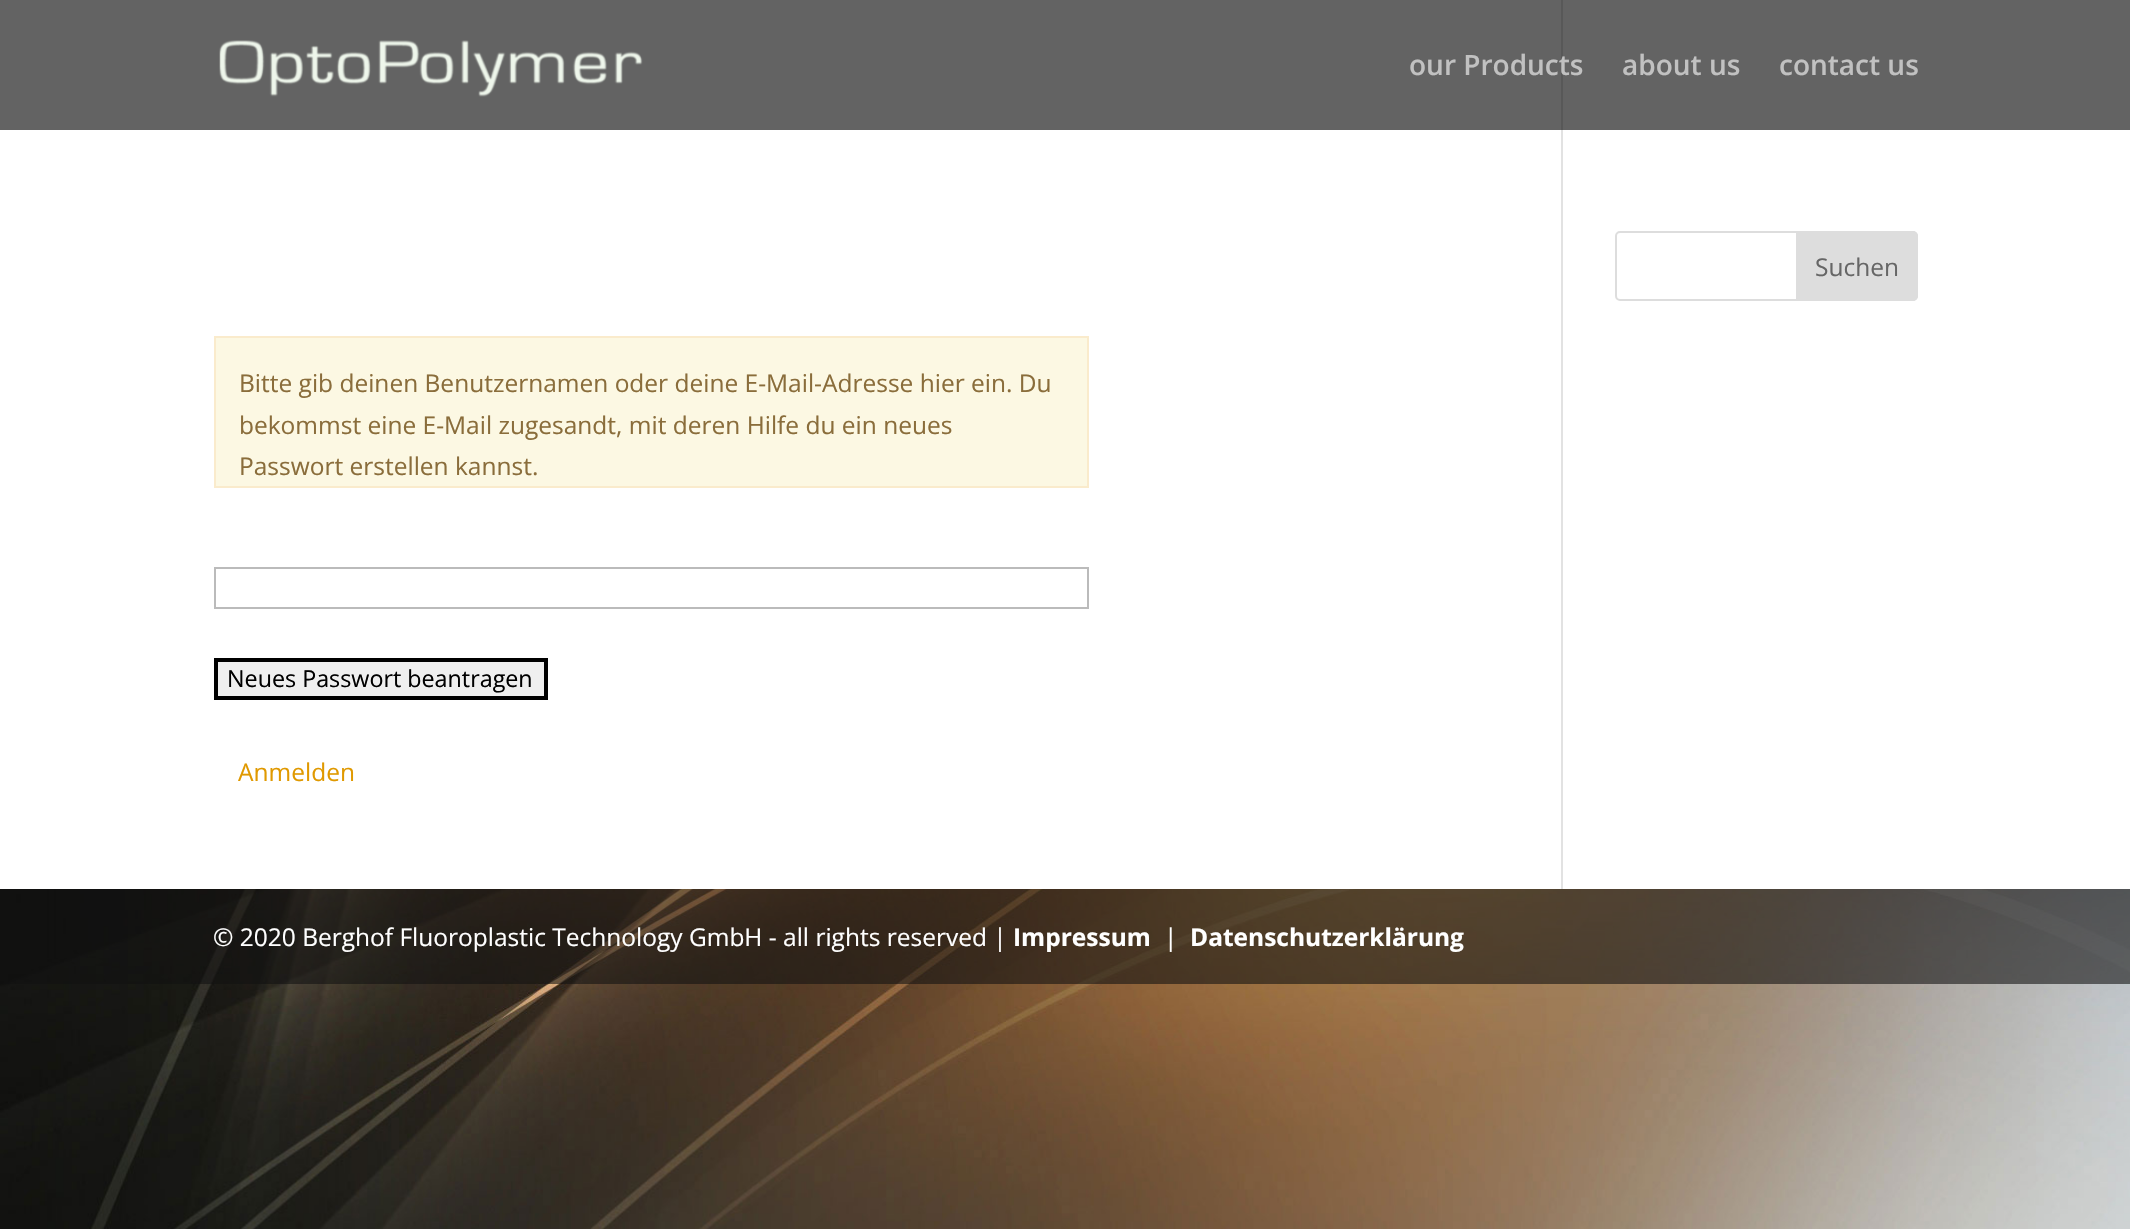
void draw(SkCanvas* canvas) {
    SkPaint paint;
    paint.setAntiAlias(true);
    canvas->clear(0xFFFFFFFF);
    canvas->drawImageRect(SkImages::DeferredFromEncodedData(SkData::MakeFromFileName("img1.png")), SkRect::MakeXYWH(0, 889, 2130, 340), SkSamplingOptions());
    paint.setColor(0xFFE2E2E2);
    canvas->drawRect(SkRect::MakeXYWH(1561, 0, 2, 889), paint);
    paint.setColor(0x9C000000);
    canvas->drawRect(SkRect::MakeXYWH(0, 0, 2130, 130), paint);
    canvas->drawImageRect(SkImages::DeferredFromEncodedData(SkData::MakeFromFileName("img2.png")), SkRect::MakeXYWH(219, 40, 424, 57), SkSamplingOptions());
    SkFont font1(fontMgr->matchFamilyStyle("Open Sans", SkFontStyle(600, SkFontStyle::kNormal_Width, SkFontStyle::kUpright_Slant)), 28);
    font1.setSubpixel(true);
    paint.setColor(0xFFC1C1C1);
    canvas->drawString("our Products", 1409, 75, font1, paint);
    canvas->drawString("about us", 1622, 75, font1, paint);
    canvas->drawString("contact us", 1779, 75, font1, paint);
    paint.setStyle(SkPaint::kStroke_Style);
    paint.setStrokeWidth(2);
    paint.setColor(0xFFDDDDDD);
    canvas->drawRoundRect(SkRect::MakeXYWH(1616, 232, 301, 68), 4, 4, paint);
    paint.setStyle(SkPaint::kFill_Style);
    canvas->drawPath(SkPathBuilder().moveTo(1797, 232).lineTo(1913, 232).cubicTo(1915, 232, 1917, 234, 1917, 236).lineTo(1917, 296).cubicTo(1917, 298, 1915, 300, 1913, 300).lineTo(1797, 300).close().detach(), paint);
    paint.setStyle(SkPaint::kStroke_Style);
    canvas->drawPath(SkPathBuilder().moveTo(1797, 232).lineTo(1913, 232).cubicTo(1915, 232, 1917, 234, 1917, 236).lineTo(1917, 296).cubicTo(1917, 298, 1915, 300, 1913, 300).lineTo(1797, 300).close().detach(), paint);
    SkFont font2(fontMgr->matchFamilyStyle("Open Sans", SkFontStyle::Normal()), 24.5f);
    font2.setSubpixel(true);
    paint.setStyle(SkPaint::kFill_Style);
    paint.setColor(0xFF666666);
    canvas->drawString("Suchen", 1815, 276, font2, paint);
    paint.setColor(0xFFFCF8E3);
    canvas->drawRect(SkRect::MakeXYWH(215, 337, 873, 150), paint);
    paint.setStyle(SkPaint::kStroke_Style);
    paint.setColor(0xFFFAEBCC);
    canvas->drawRect(SkRect::MakeXYWH(215, 337, 873, 150), paint);
    paint.setStyle(SkPaint::kFill_Style);
    paint.setColor(0xFF8A6D3B);
    canvas->drawString("Bitte gib deinen Benutzernamen oder deine E-Mail-Adresse hier ein. Du", 239, 392, font2, paint);
    canvas->drawString("bekommst eine E-Mail zugesandt, mit deren Hilfe du ein neues", 239, 434, font2, paint);
    canvas->drawString("Passwort erstellen kannst.", 239, 475, font2, paint);
    paint.setStyle(SkPaint::kStroke_Style);
    paint.setColor(0xFFBBBBBB);
    canvas->drawRect(SkRect::MakeXYWH(215, 568, 873, 40), paint);
    paint.setStyle(SkPaint::kFill_Style);
    paint.setColor(0xFFEFEFEF);
    canvas->drawRect(SkRect::MakeXYWH(216, 660, 330, 38), paint);
    paint.setStyle(SkPaint::kStroke_Style);
    paint.setStrokeWidth(4);
    paint.setColor(0xFF000000);
    canvas->drawRect(SkRect::MakeXYWH(216, 660, 330, 38), paint);
    SkFont font3(fontMgr->matchFamilyStyle("Open Sans", SkFontStyle::Normal()), 23.3f);
    font3.setSubpixel(true);
    paint.setStyle(SkPaint::kFill_Style);
    canvas->drawString("Neues Passwort beantragen", 227, 687, font3, paint);
    paint.setColor(0xFFE09900);
    canvas->drawString("Anmelden", 238, 781, font2, paint);
    paint.setColor(0x61222222);
    canvas->drawRect(SkRect::MakeXYWH(0, 889, 2130, 95), paint);
    paint.setColor(0x52000000);
    canvas->drawRect(SkRect::MakeXYWH(0, 889, 2130, 95), paint);
    paint.setColor(0xFFFFFFFF);
    canvas->drawString("© 2020 Berghof Fluoroplastic Technology GmbH - all rights reserved |", 213, 946, font2, paint);
    SkFont font4(fontMgr->matchFamilyStyle("Open Sans", SkFontStyle::Bold()), 24.5f);
    font4.setSubpixel(true);
    canvas->drawString("Impressum", 1013, 946, font4, paint);
    canvas->drawString("|", 1164, 946, font2, paint);
    canvas->drawString("Datenschutzerklärung", 1190, 946, font4, paint);
}
